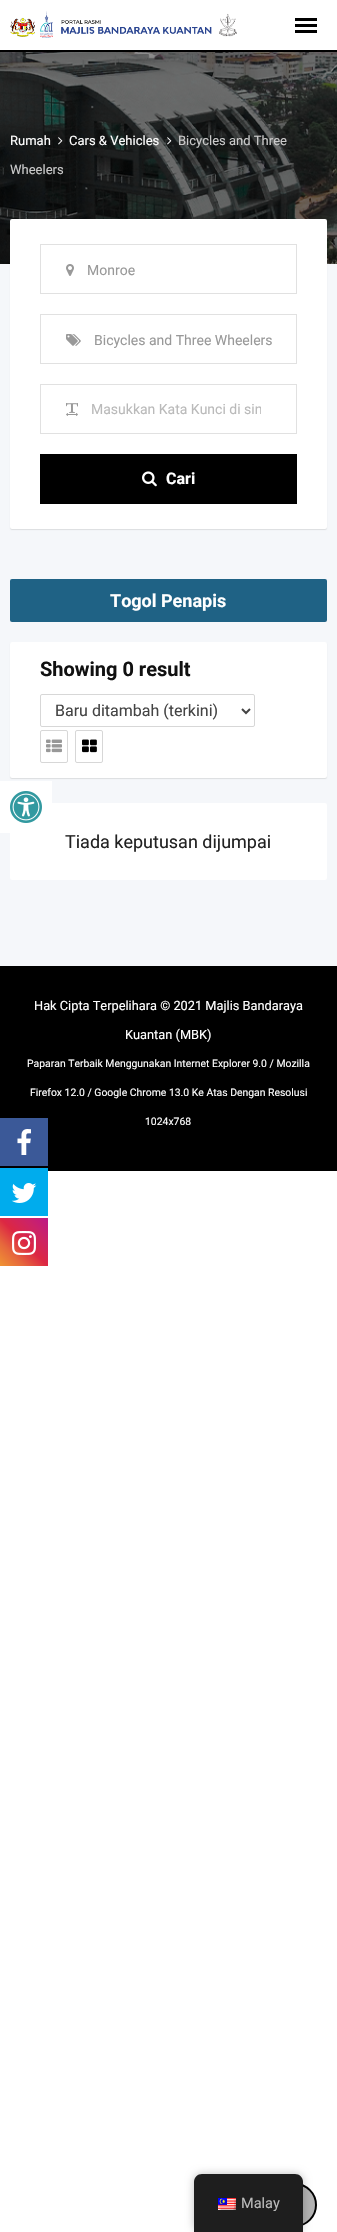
void draw(SkCanvas* canvas) {
    SkPaint paint;
    paint.setAntiAlias(true);
    canvas->clear(0xFFFFFFFF);
    paint.setColor(0xFF000000);
    canvas->drawRect(SkRect::MakeXYWH(0, 50, 337, 2), paint);
    canvas->drawImageRect(SkImages::DeferredFromEncodedData(SkData::MakeFromFileName("img1.png")), SkRect::MakeXYWH(10, 11, 227, 27), SkSamplingOptions());
    canvas->drawRect(SkRect::MakeXYWH(295, 18, 22, 3), paint);
    canvas->drawRect(SkRect::MakeXYWH(295, 24, 22, 3), paint);
    canvas->drawRect(SkRect::MakeXYWH(295, 30, 22, 3), paint);
    paint.setColor(0xFFF5F7FA);
    canvas->drawRect(SkRect::MakeXYWH(0, 264, 337, 702), paint);
    canvas->drawImageRect(SkImages::DeferredFromEncodedData(SkData::MakeFromFileName("img2.png")), SkRect::MakeXYWH(0, 52, 337, 212), SkSamplingOptions());
    SkFont font1(fontMgr->matchFamilyStyle("Roboto", SkFontStyle::Normal()), 13);
    font1.setSubpixel(true);
    paint.setColor(0xFFFFFFFF);
    canvas->drawString("Rumah", 10, 145, font1, paint);
    canvas->drawImageRect(SkImages::DeferredFromEncodedData(SkData::MakeFromFileName("img3.png")), SkRect::MakeXYWH(58, 137, 5, 8), SkSamplingOptions());
    canvas->drawString("Cars & Vehicles", 69, 145, font1, paint);
    canvas->drawImageRect(SkImages::DeferredFromEncodedData(SkData::MakeFromFileName("img4.png")), SkRect::MakeXYWH(167, 137, 5, 8), SkSamplingOptions());
    paint.setColor(0xFFCACACA);
    canvas->drawString("Bicycles and Three", 178, 145, font1, paint);
    canvas->drawString("Wheelers", 10, 174, font1, paint);
    paint.setColor(0x1A000000);
    paint.setMaskFilter(SkMaskFilter::MakeBlur(kNormal_SkBlurStyle, 0.5f));
    canvas->drawRoundRect(SkRect::MakeXYWH(10, 220, 317, 310), 2, 2, paint);
    paint.setMaskFilter(nullptr);
    paint.setColor(0xFFFFFFFF);
    canvas->drawRoundRect(SkRect::MakeXYWH(10, 219, 317, 310), 2, 2, paint);
    paint.setStyle(SkPaint::kStroke_Style);
    paint.setStrokeWidth(1);
    paint.setColor(0xFFE1E1E1);
    canvas->drawRect(SkRect::MakeXYWH(40.5f, 244.5f, 256, 49), paint);
    canvas->drawImageRect(SkImages::DeferredFromEncodedData(SkData::MakeFromFileName("img5.png")), SkRect::MakeXYWH(66, 264, 8, 12), SkSamplingOptions());
    SkFont font2(fontMgr->matchFamilyStyle("Roboto", SkFontStyle::Normal()), 14);
    font2.setSubpixel(true);
    paint.setStyle(SkPaint::kFill_Style);
    paint.setColor(0xFF999999);
    canvas->drawString("Monroe", 87, 275, font2, paint);
    paint.setStyle(SkPaint::kStroke_Style);
    paint.setColor(0xFFE1E1E1);
    canvas->drawRect(SkRect::MakeXYWH(40.5f, 314.5f, 256, 49), paint);
    canvas->drawImageRect(SkImages::DeferredFromEncodedData(SkData::MakeFromFileName("img6.png")), SkRect::MakeXYWH(66, 334, 15, 12), SkSamplingOptions());
    paint.setStyle(SkPaint::kFill_Style);
    paint.setColor(0xFF999999);
    canvas->drawString("Bicycles and Three Wheelers", 94, 345, font2, paint);
    paint.setStyle(SkPaint::kStroke_Style);
    paint.setColor(0xFFE1E1E1);
    canvas->drawRect(SkRect::MakeXYWH(40.5f, 384.5f, 256, 49), paint);
    canvas->drawImageRect(SkImages::DeferredFromEncodedData(SkData::MakeFromFileName("img7.png")), SkRect::MakeXYWH(66, 403, 12, 13), SkSamplingOptions());
    canvas->save();
    canvas->clipRect(SkRect::MakeXYWH(91, 401, 170, 16));
    paint.setStyle(SkPaint::kFill_Style);
    paint.setColor(0xFFBABABA);
    canvas->drawString("Masukkan Kata Kunci di sin", 91, 414, font2, paint);
    canvas->restore();
    paint.setColor(0xFF000000);
    canvas->drawRect(SkRect::MakeXYWH(40, 454, 257, 50), paint);
    canvas->drawImageRect(SkImages::DeferredFromEncodedData(SkData::MakeFromFileName("img8.png")), SkRect::MakeXYWH(142, 471, 15, 16), SkSamplingOptions());
    SkFont font3(fontMgr->matchFamilyStyle("Roboto", SkFontStyle::Bold()), 16);
    font3.setSubpixel(true);
    paint.setColor(0xFFFFFFFF);
    canvas->drawString("Cari", 166, 484, font3, paint);
    paint.setColor(0xFF1F6285);
    canvas->drawRoundRect(SkRect::MakeXYWH(10, 579, 317, 43), 2, 2, paint);
    SkFont font4(fontMgr->matchFamilyStyle("Roboto", SkFontStyle::Bold()), 18);
    font4.setSubpixel(true);
    paint.setColor(0xFFFFFFFF);
    canvas->drawString("Togol Penapis", 110, 607, font4, paint);
    paint.setColor(0x1A000000);
    paint.setMaskFilter(SkMaskFilter::MakeBlur(kNormal_SkBlurStyle, 0.5f));
    canvas->drawRoundRect(SkRect::MakeXYWH(10, 643, 317, 136), 2, 2, paint);
    paint.setMaskFilter(nullptr);
    paint.setColor(0xFFFFFFFF);
    canvas->drawRoundRect(SkRect::MakeXYWH(10, 642, 317, 136), 2, 2, paint);
    SkFont font5(fontMgr->matchFamilyStyle("Roboto", SkFontStyle::Bold()), 20);
    font5.setSubpixel(true);
    paint.setColor(0xFF111111);
    canvas->drawString("Showing 0 result", 40, 676, font5, paint);
    paint.setStyle(SkPaint::kStroke_Style);
    paint.setColor(0xFFD7D7D7);
    canvas->drawRoundRect(SkRect::MakeXYWH(40.5f, 694.5f, 214, 32), 1.5f, 1.5f, paint);
    paint.setStrokeWidth(2);
    paint.setColor(0xFF444444);
    canvas->drawPath(SkPathBuilder().moveTo(242, 709).lineTo(246, 713).lineTo(250, 709).detach(), paint);
    SkFont font6(fontMgr->matchFamilyStyle("Roboto", SkFontStyle::Normal()), 16);
    font6.setSubpixel(true);
    paint.setStyle(SkPaint::kFill_Style);
    canvas->drawString("Baru ditambah (terkini)", 55, 716, font6, paint);
    paint.setStyle(SkPaint::kStroke_Style);
    paint.setStrokeWidth(1);
    paint.setColor(0xFFD7D7D7);
    canvas->drawRoundRect(SkRect::MakeXYWH(40.5f, 730.5f, 27, 32), 1.5f, 1.5f, paint);
    canvas->drawImageRect(SkImages::DeferredFromEncodedData(SkData::MakeFromFileName("img9.png")), SkRect::MakeXYWH(46, 739, 16, 14), SkSamplingOptions());
    canvas->drawRoundRect(SkRect::MakeXYWH(75.5f, 730.5f, 27, 32), 1.5f, 1.5f, paint);
    canvas->drawImageRect(SkImages::DeferredFromEncodedData(SkData::MakeFromFileName("img10.png")), SkRect::MakeXYWH(82, 739, 15, 14), SkSamplingOptions());
    paint.setStyle(SkPaint::kFill_Style);
    paint.setColor(0xFFFFFFFF);
    canvas->drawRoundRect(SkRect::MakeXYWH(10, 803, 317, 77), 2, 2, paint);
    SkFont font7(fontMgr->matchFamilyStyle("Roboto", SkFontStyle::Normal()), 18);
    font7.setSubpixel(true);
    paint.setColor(0xFF222222);
    canvas->drawString("Tiada keputusan dijumpai", 65, 848, font7, paint);
    paint.setColor(0xFF000000);
    canvas->drawRect(SkRect::MakeXYWH(0, 966, 337, 205), paint);
    SkFont font8(fontMgr->matchFamilyStyle("Roboto", SkFontStyle::Normal()), 12.8f);
    font8.setSubpixel(true);
    paint.setColor(0xFFFFFFFF);
    canvas->drawString("Hak Cipta Terpelihara © 2021 Majlis Bandaraya", 34, 1010, font8, paint);
    canvas->drawString("Kuantan (MBK)", 125, 1039, font8, paint);
    SkFont font9(fontMgr->matchFamilyStyle("Roboto", SkFontStyle::Normal()), 10.4f);
    font9.setSubpixel(true);
    canvas->drawString("Paparan Terbaik Menggunakan Internet Explorer 9.0 / Mozilla", 27, 1067, font9, paint);
    canvas->drawString("Firefox 12.0 / Google Chrome 13.0 Ke Atas Dengan Resolusi", 30, 1096, font9, paint);
    canvas->drawString("1024x768", 145, 1125, font9, paint);
    canvas->drawRect(SkRect::MakeXYWH(0, 781, 52, 52), paint);
    canvas->drawImageRect(SkImages::DeferredFromEncodedData(SkData::MakeFromFileName("img11.png")), SkRect::MakeXYWH(10, 791, 32, 32), SkSamplingOptions());
    paint.setColor(0xFF3B5998);
    canvas->drawRect(SkRect::MakeXYWH(0, 1118, 48, 48), paint);
    canvas->drawImageRect(SkImages::DeferredFromEncodedData(SkData::MakeFromFileName("img12.png")), SkRect::MakeXYWH(17, 1129, 14, 26), SkSamplingOptions());
    paint.setColor(0xFF00ACED);
    canvas->drawRect(SkRect::MakeXYWH(0, 1168, 48, 48), paint);
    canvas->drawImageRect(SkImages::DeferredFromEncodedData(SkData::MakeFromFileName("img13.png")), SkRect::MakeXYWH(11, 1183, 26, 20), SkSamplingOptions());
    {
        const SkColor colors[] = {0xFFF09433, 0xFFE6683C, 0xFFDC2743, 0xFFCC2366, 0xFFBC1888};
        const float stops[] = {0, 0.25f, 0.5f, 0.75f, 1};
        const SkPoint ends[] = {{0, 1266}, {48, 1218}};
        paint.setShader(SkGradientShader::MakeLinear(ends, colors, stops, 5, SkTileMode::kClamp));
        paint.setAlpha(255);
    }
    canvas->drawRect(SkRect::MakeXYWH(0, 1218, 48, 48), paint);
    canvas->drawImageRect(SkImages::DeferredFromEncodedData(SkData::MakeFromFileName("img14.png")), SkRect::MakeXYWH(12, 1231, 24, 24), SkSamplingOptions());
    paint.setShader(nullptr);
    paint.setColor(0xFFB3B3B3);
    canvas->drawCircle(295, 2205, 21, paint);
    paint.setStyle(SkPaint::kStroke_Style);
    paint.setStrokeWidth(2);
    paint.setColor(0xFF000000);
    canvas->drawCircle(295, 2205, 21, paint);
    paint.setStyle(SkPaint::kFill_Style);
    paint.setColor(0x40000000);
    paint.setMaskFilter(SkMaskFilter::MakeBlur(kNormal_SkBlurStyle, 4));
    canvas->drawRoundRect(SkRect::MakeXYWH(194, 2174, 109, 58), 8, 8, paint);
    paint.setMaskFilter(nullptr);
    paint.setColor(0xFF1E1E1E);
    canvas->drawPath(SkPathBuilder().moveTo(202, 2174).lineTo(295, 2174).cubicTo(299.5f, 2174, 303, 2177.5f, 303, 2182).lineTo(303, 2232).lineTo(194, 2232).lineTo(194, 2182).cubicTo(194, 2177.5f, 197.5f, 2174, 202, 2174).close().detach(), paint);
    canvas->drawImageRect(SkImages::DeferredFromEncodedData(SkData::MakeFromFileName("img15.png")), SkRect::MakeXYWH(218, 2198, 18, 12), SkSamplingOptions());
    SkFont font10(fontMgr->matchFamilyStyle("Roboto", SkFontStyle::Normal()), 14.5f);
    font10.setSubpixel(true);
    paint.setColor(0xFFBABABA);
    canvas->drawString("Malay", 241, 2208, font10, paint);
}
